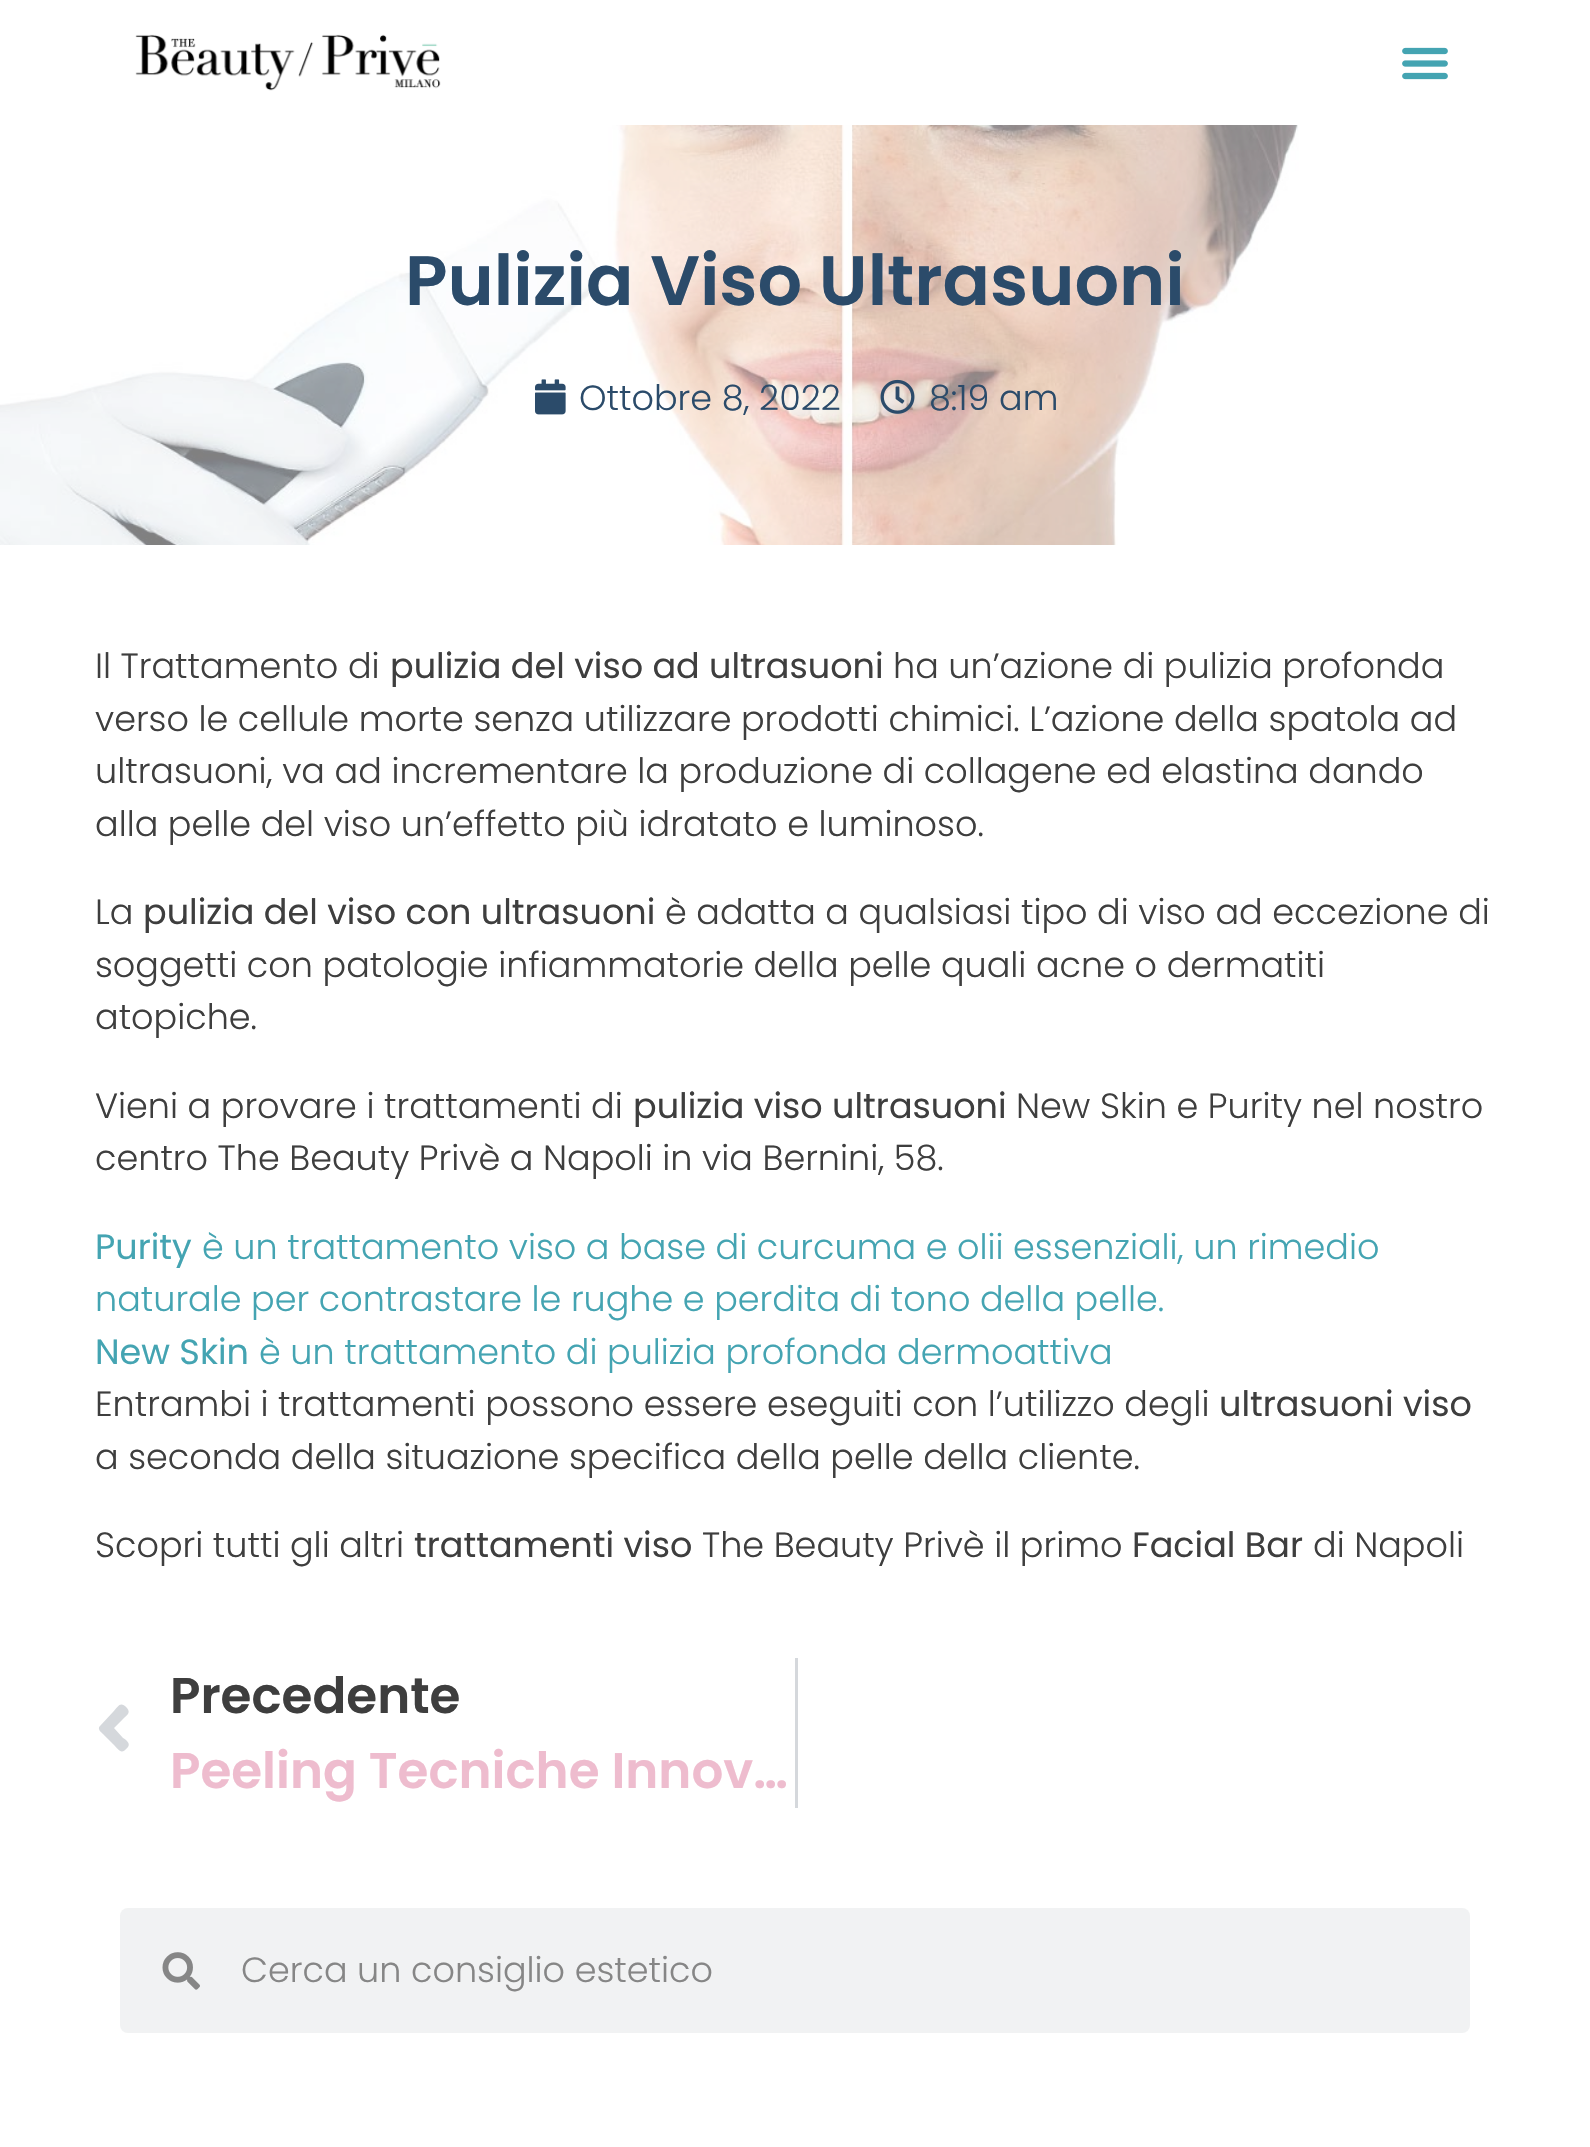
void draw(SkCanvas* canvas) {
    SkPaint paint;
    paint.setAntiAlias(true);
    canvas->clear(0xFFFFFFFF);
    canvas->drawImageRect(SkImages::DeferredFromEncodedData(SkData::MakeFromFileName("img1.png")), SkRect::MakeXYWH(135, 34, 306, 57), SkSamplingOptions());
    canvas->drawImageRect(SkImages::DeferredFromEncodedData(SkData::MakeFromFileName("img2.png")), SkRect::MakeXYWH(1402, 47, 46, 33), SkSamplingOptions());
    canvas->drawImageRect(SkImages::DeferredFromEncodedData(SkData::MakeFromFileName("img3.png")), SkRect::MakeXYWH(0, 125, 1299, 420), SkSamplingOptions());
    SkFont font1(fontMgr->matchFamilyStyle("Poppins", SkFontStyle(600, SkFontStyle::kNormal_Width, SkFontStyle::kUpright_Slant)), 70);
    font1.setSubpixel(true);
    paint.setColor(0xFF2B4B6A);
    canvas->drawString("Pulizia Viso Ultrasuoni", 405, 305, font1, paint);
    canvas->drawImageRect(SkImages::DeferredFromEncodedData(SkData::MakeFromFileName("img4.png")), SkRect::MakeXYWH(535, 379, 31, 36), SkSamplingOptions());
    SkFont font2(fontMgr->matchFamilyStyle("Poppins", SkFontStyle(300, SkFontStyle::kNormal_Width, SkFontStyle::kUpright_Slant)), 35);
    font2.setSubpixel(true);
    canvas->drawString("Ottobre 8, 2022", 579, 410, font2, paint);
    canvas->drawImageRect(SkImages::DeferredFromEncodedData(SkData::MakeFromFileName("img5.png")), SkRect::MakeXYWH(880, 379, 35, 35), SkSamplingOptions());
    canvas->drawString("8:19 am", 929, 410, font2, paint);
    paint.setColor(0xFF3E3E3E);
    canvas->drawString("Il Trattamento di", 95, 678, font2, paint);
    SkFont font3(fontMgr->matchFamilyStyle("Poppins", SkFontStyle::Normal()), 35);
    font3.setSubpixel(true);
    canvas->drawString("pulizia del viso ad ultrasuoni", 390, 678, font3, paint);
    canvas->drawString("ha un’azione di pulizia profonda", 893, 678, font2, paint);
    canvas->drawString("verso le cellule morte senza utilizzare prodotti chimici. L’azione della spatola ad", 95, 731, font2, paint);
    canvas->drawString("ultrasuoni, va ad incrementare la produzione di collagene ed elastina dando", 95, 783, font2, paint);
    canvas->drawString("alla pelle del viso un’effetto più idratato e luminoso.", 95, 836, font2, paint);
    canvas->drawString("La", 95, 924, font2, paint);
    canvas->drawString("pulizia del viso con ultrasuoni", 143, 924, font3, paint);
    canvas->drawString("è adatta a qualsiasi tipo di viso ad eccezione di", 665, 924, font2, paint);
    canvas->drawString("soggetti con patologie infiammatorie della pelle quali acne o dermatiti", 95, 977, font2, paint);
    canvas->drawString("atopiche.", 95, 1029, font2, paint);
    canvas->drawString("Vieni a provare i trattamenti di", 95, 1118, font2, paint);
    canvas->drawString("pulizia viso ultrasuoni", 633, 1118, font3, paint);
    canvas->drawString("New Skin e Purity nel nostro", 1016, 1118, font2, paint);
    canvas->drawString("centro The Beauty Privè a Napoli in via Bernini, 58.", 95, 1170, font2, paint);
    paint.setColor(0xFF44A4B2);
    canvas->drawString("Purity", 95, 1259, font3, paint);
    canvas->drawString("è un trattamento viso a base di curcuma e olii essenziali, un rimedio", 202, 1259, font2, paint);
    canvas->drawString("naturale per contrastare le rughe e perdita di tono della pelle.", 95, 1311, font2, paint);
    canvas->drawString("New Skin", 95, 1364, font3, paint);
    canvas->drawString("è un trattamento di pulizia profonda dermoattiva", 259, 1364, font2, paint);
    paint.setColor(0xFF3E3E3E);
    canvas->drawString("Entrambi i trattamenti possono essere eseguiti con l’utilizzo degli", 95, 1416, font2, paint);
    canvas->drawString("ultrasuoni viso", 1219, 1416, font3, paint);
    canvas->drawString("a seconda della situazione specifica della pelle della cliente.", 95, 1469, font2, paint);
    canvas->drawString("Scopri tutti gli altri", 95, 1557, font2, paint);
    canvas->drawString("trattamenti viso", 414, 1557, font3, paint);
    canvas->drawString("The Beauty Privè il primo", 702, 1557, font2, paint);
    canvas->drawString("Facial Bar", 1132, 1557, font3, paint);
    canvas->drawString("di Napoli", 1313, 1557, font2, paint);
    paint.setColor(0xFFD5D8DC);
    canvas->drawPath(SkPathBuilder().moveTo(100, 1726).lineTo(113, 1712).cubicTo(119, 1706, 120, 1701, 127, 1708).cubicTo(131, 1713, 127, 1715, 123, 1719).lineTo(114, 1728).lineTo(123, 1738).cubicTo(125, 1739, 131, 1743, 128, 1747).cubicTo(121, 1755, 120, 1751, 113, 1744).lineTo(103, 1734).cubicTo(101, 1732, 97, 1729, 100, 1726).close().detach(), paint);
    SkFont font4(fontMgr->matchFamilyStyle("Poppins", SkFontStyle(600, SkFontStyle::kNormal_Width, SkFontStyle::kUpright_Slant)), 50);
    font4.setSubpixel(true);
    paint.setColor(0xFF3E3E3E);
    canvas->drawString("Precedente", 170, 1713, font4, paint);
    paint.setColor(0xFFEEBCCE);
    canvas->drawString("Peeling Tecniche Innov…", 170, 1788, font4, paint);
    paint.setColor(0xFFD5D8DC);
    canvas->drawRect(SkRect::MakeXYWH(795, 1658, 3, 150), paint);
    paint.setColor(0xFFF1F2F3);
    canvas->drawRoundRect(SkRect::MakeXYWH(120, 1908, 1350, 125), 8, 8, paint);
    canvas->drawImageRect(SkImages::DeferredFromEncodedData(SkData::MakeFromFileName("img6.png")), SkRect::MakeXYWH(162, 1952, 38, 38), SkSamplingOptions());
    paint.setColor(0xFF868686);
    canvas->drawString("Cerca un consiglio estetico", 241, 1982, font2, paint);
}
